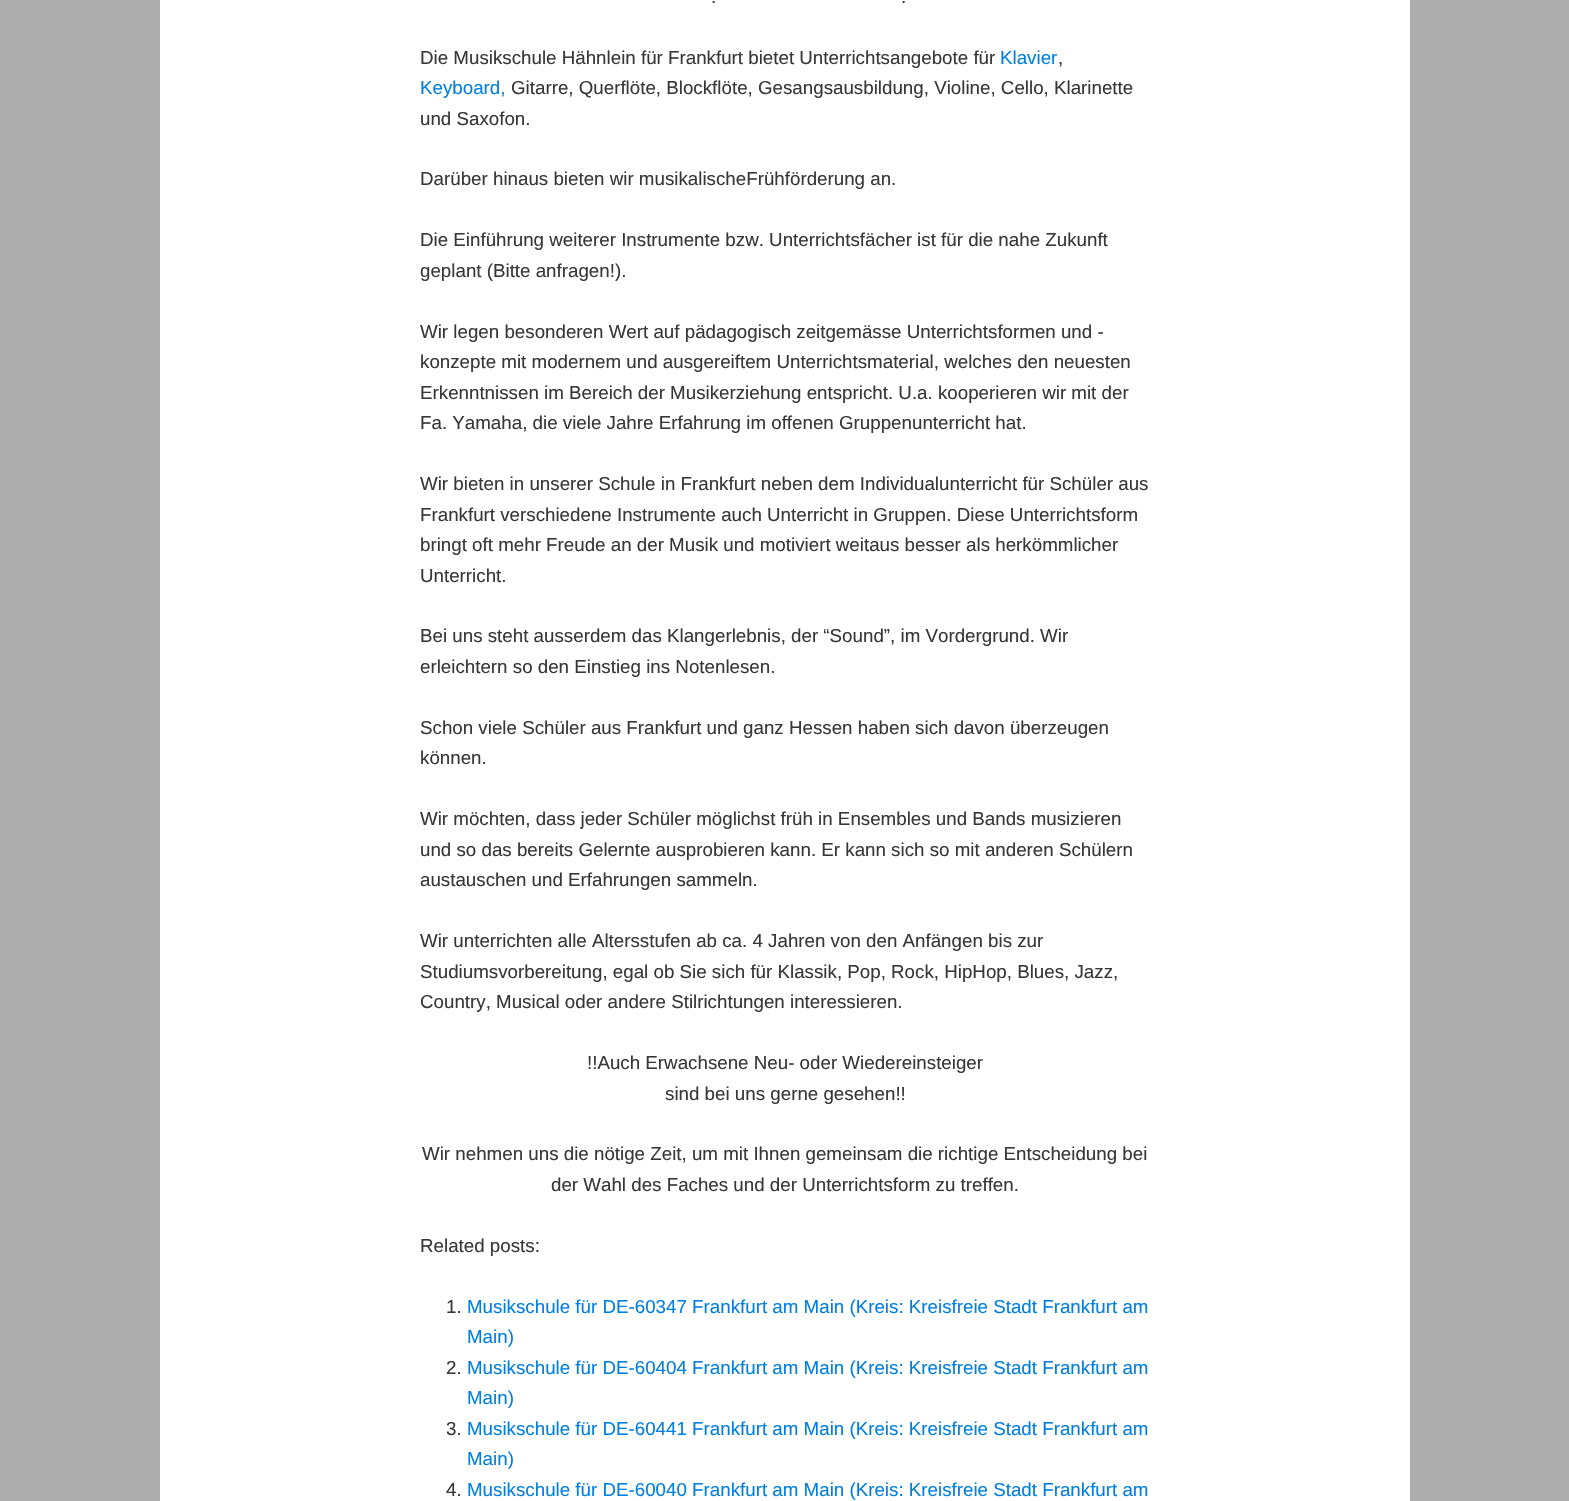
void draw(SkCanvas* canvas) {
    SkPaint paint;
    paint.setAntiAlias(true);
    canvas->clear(0xFFADADAD);
    paint.setColor(0xFFFFFFFF);
    canvas->drawRect(SkRect::MakeXYWH(160, 0, 1250, 1501), paint);
    SkFont font1(fontMgr->matchFamilyStyle("Liberation Sans", SkFontStyle::Normal()), 18.75f);
    font1.setSubpixel(true);
    paint.setColor(0xFF373737);
    canvas->drawString(".", 711, 3, font1, paint);
    canvas->drawString(".", 901, 3, font1, paint);
    canvas->drawString("Die Musikschule Hähnlein für Frankfurt bietet Unterrichtsangebote für", 420, 64, font1, paint);
    paint.setColor(0xFF007FE0);
    canvas->drawString("Klavier", 1000, 64, font1, paint);
    paint.setColor(0xFF373737);
    canvas->drawString(",", 1058, 64, font1, paint);
    paint.setColor(0xFF007FE0);
    canvas->drawString("Keyboard,", 420, 94, font1, paint);
    paint.setColor(0xFF373737);
    canvas->drawString("Gitarre, Querflöte, Blockflöte, Gesangsausbildung, Violine, Cello, Klarinette", 511, 94, font1, paint);
    canvas->drawString("und Saxofon.", 420, 125, font1, paint);
    canvas->drawString("Darüber hinaus bieten wir musikalischeFrühförderung an.", 420, 185, font1, paint);
    canvas->drawString("Die Einführung weiterer Instrumente bzw. Unterrichtsfächer ist für die nahe Zukunft", 420, 246, font1, paint);
    canvas->drawString("geplant (Bitte anfragen!).", 420, 277, font1, paint);
    canvas->drawString("Wir legen besonderen Wert auf pädagogisch zeitgemässe Unterrichtsformen und -", 420, 338, font1, paint);
    canvas->drawString("konzepte mit modernem und ausgereiftem Unterrichtsmaterial, welches den neuesten", 420, 368, font1, paint);
    canvas->drawString("Erkenntnissen im Bereich der Musikerziehung entspricht. U.a. kooperieren wir mit der", 420, 399, font1, paint);
    canvas->drawString("Fa. Yamaha, die viele Jahre Erfahrung im offenen Gruppenunterricht hat.", 420, 429, font1, paint);
    canvas->drawString("Wir bieten in unserer Schule in Frankfurt neben dem Individualunterricht für Schüler aus", 420, 490, font1, paint);
    canvas->drawString("Frankfurt verschiedene Instrumente auch Unterricht in Gruppen. Diese Unterrichtsform", 420, 521, font1, paint);
    canvas->drawString("bringt oft mehr Freude an der Musik und motiviert weitaus besser als herkömmlicher", 420, 551, font1, paint);
    canvas->drawString("Unterricht.", 420, 582, font1, paint);
    canvas->drawString("Bei uns steht ausserdem das Klangerlebnis, der “Sound”, im Vordergrund. Wir", 420, 642, font1, paint);
    canvas->drawString("erleichtern so den Einstieg ins Notenlesen.", 420, 673, font1, paint);
    canvas->drawString("Schon viele Schüler aus Frankfurt und ganz Hessen haben sich davon überzeugen", 420, 734, font1, paint);
    canvas->drawString("können.", 420, 764, font1, paint);
    canvas->drawString("Wir möchten, dass jeder Schüler möglichst früh in Ensembles und Bands musizieren", 420, 825, font1, paint);
    canvas->drawString("und so das bereits Gelernte ausprobieren kann. Er kann sich so mit anderen Schülern", 420, 856, font1, paint);
    canvas->drawString("austauschen und Erfahrungen sammeln.", 420, 886, font1, paint);
    canvas->drawString("Wir unterrichten alle Altersstufen ab ca. 4 Jahren von den Anfängen bis zur", 420, 947, font1, paint);
    canvas->drawString("Studiumsvorbereitung, egal ob Sie sich für Klassik, Pop, Rock, HipHop, Blues, Jazz,", 420, 978, font1, paint);
    canvas->drawString("Country, Musical oder andere Stilrichtungen interessieren.", 420, 1008, font1, paint);
    canvas->drawString("!!Auch Erwachsene Neu- oder Wiedereinsteiger", 587, 1069, font1, paint);
    canvas->drawString("sind bei uns gerne gesehen!!", 665, 1100, font1, paint);
    canvas->drawString("Wir nehmen uns die nötige Zeit, um mit Ihnen gemeinsam die richtige Entscheidung bei", 422, 1160, font1, paint);
    canvas->drawString("der Wahl des Faches und der Unterrichtsform zu treffen.", 551, 1191, font1, paint);
    canvas->drawString("Related posts:", 420, 1252, font1, paint);
    canvas->drawString("1.", 446, 1313, font1, paint);
    paint.setColor(0xFF007FE0);
    canvas->drawString("Musikschule für DE-60347 Frankfurt am Main (Kreis: Kreisfreie Stadt Frankfurt am", 467, 1313, font1, paint);
    canvas->drawString("Main)", 467, 1343, font1, paint);
    paint.setColor(0xFF373737);
    canvas->drawString("2.", 446, 1374, font1, paint);
    paint.setColor(0xFF007FE0);
    canvas->drawString("Musikschule für DE-60404 Frankfurt am Main (Kreis: Kreisfreie Stadt Frankfurt am", 467, 1374, font1, paint);
    canvas->drawString("Main)", 467, 1404, font1, paint);
    paint.setColor(0xFF373737);
    canvas->drawString("3.", 446, 1435, font1, paint);
    paint.setColor(0xFF007FE0);
    canvas->drawString("Musikschule für DE-60441 Frankfurt am Main (Kreis: Kreisfreie Stadt Frankfurt am", 467, 1435, font1, paint);
    canvas->drawString("Main)", 467, 1465, font1, paint);
    paint.setColor(0xFF373737);
    canvas->drawString("4.", 446, 1496, font1, paint);
    paint.setColor(0xFF007FE0);
    canvas->drawString("Musikschule für DE-60040 Frankfurt am Main (Kreis: Kreisfreie Stadt Frankfurt am", 467, 1496, font1, paint);
}
